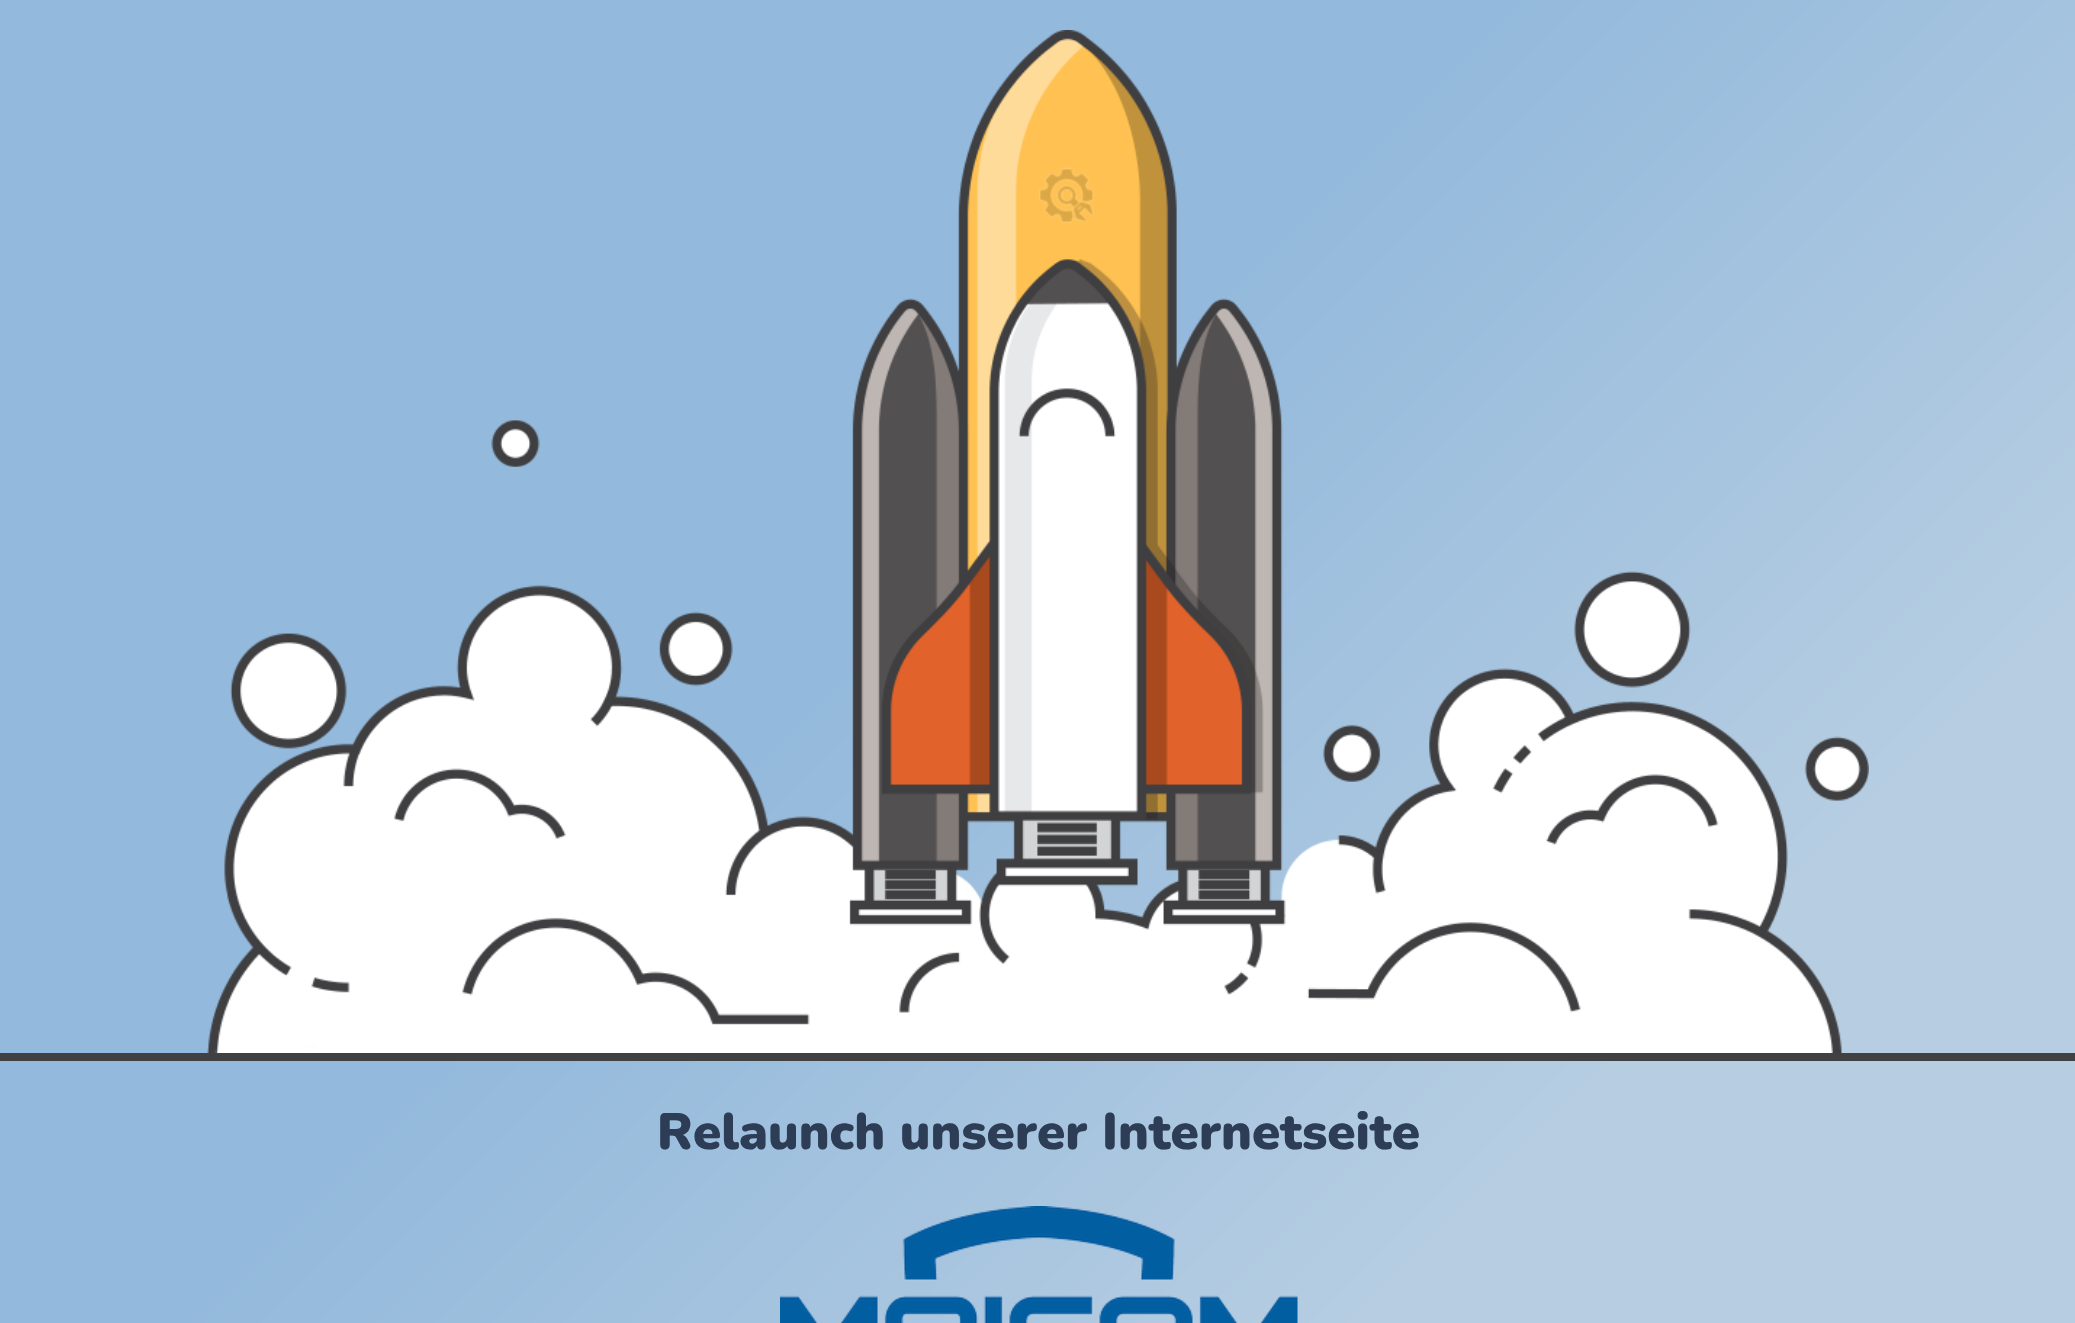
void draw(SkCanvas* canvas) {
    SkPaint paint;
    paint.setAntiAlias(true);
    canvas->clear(0xFFFFFFFF);
    {
        const SkColor colors[] = {0xFF93B9DC, 0xFF93B9DC, 0xFFB7CEE2};
        const float stops[] = {0, 0.44f, 0.8f};
        const SkPoint ends[] = {{188, -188}, {1888, 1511}};
        paint.setShader(SkGradientShader::MakeLinear(ends, colors, stops, 3, SkTileMode::kClamp));
        paint.setAlpha(255);
    }
    canvas->drawRect(SkRect::MakeXYWH(0, 0, 2075, 1323), paint);
    paint.setShader(nullptr);
    paint.setColor(0xFF414042);
    canvas->drawRect(SkRect::MakeXYWH(0, 1053, 2075, 8), paint);
    canvas->drawImageRect(SkImages::DeferredFromEncodedData(SkData::MakeFromFileName("img1.png")), SkRect::MakeXYWH(207, 30, 1662, 1023), SkSamplingOptions());
    SkFont font1(fontMgr->matchFamilyStyle("Nunito", SkFontStyle(200, SkFontStyle::kNormal_Width, SkFontStyle::kUpright_Slant)), 51);
    font1.setSubpixel(true);
    paint.setColor(0xFF2C3D55);
    canvas->drawString("Relaunch unserer Internetseite", 657, 1149, font1, paint);
    canvas->drawImageRect(SkImages::DeferredFromEncodedData(SkData::MakeFromFileName("img2.png")), SkRect::MakeXYWH(780, 1206, 518, 117), SkSamplingOptions());
}
